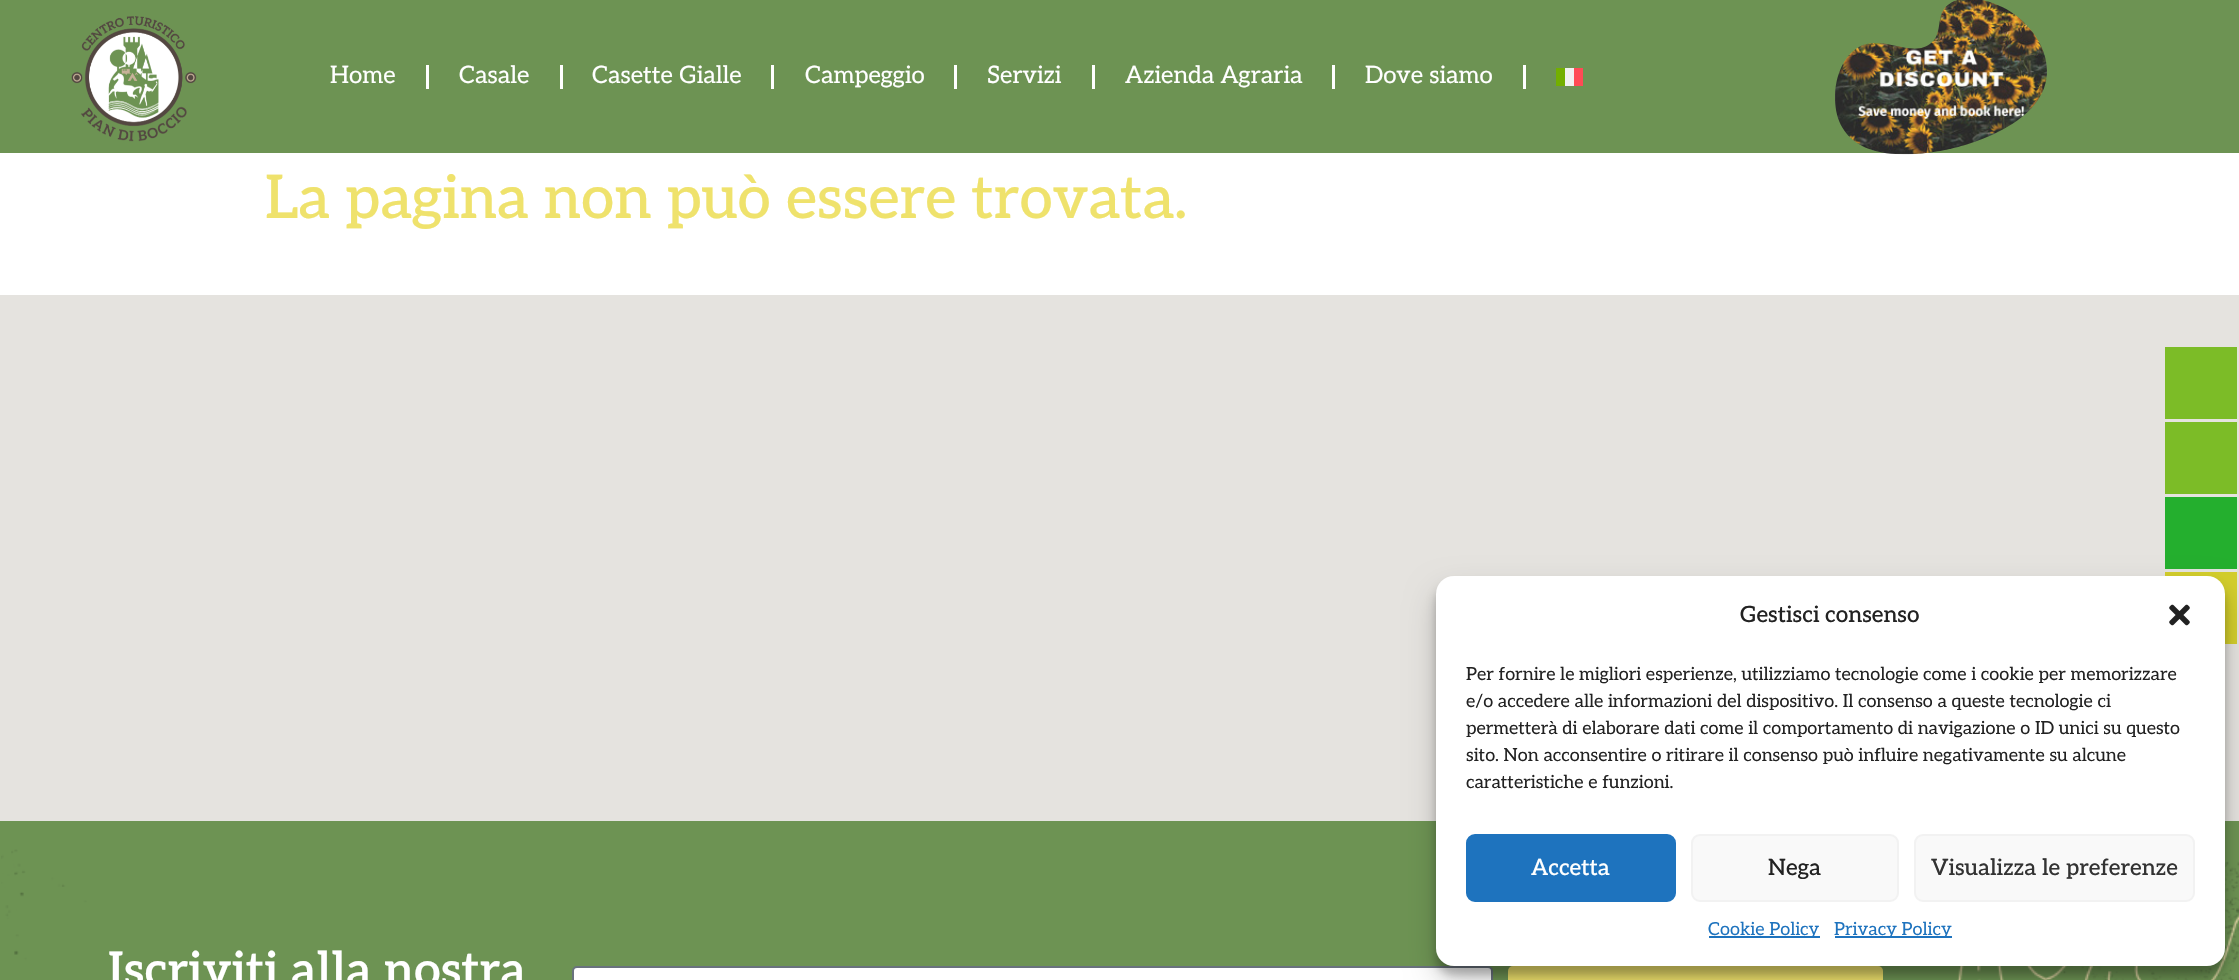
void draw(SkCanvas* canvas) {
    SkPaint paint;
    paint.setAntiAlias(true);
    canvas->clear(0xFFFFFFFF);
    paint.setColor(0xFF6D9353);
    canvas->drawRect(SkRect::MakeXYWH(0, 0, 2239, 153), paint);
    canvas->drawImageRect(SkImages::DeferredFromEncodedData(SkData::MakeFromFileName("img1.png")), SkRect::MakeXYWH(71, 16, 126, 126), SkSamplingOptions());
    SkFont font1(fontMgr->matchFamilyStyle("Aleo", SkFontStyle::Normal()), 24);
    font1.setSubpixel(true);
    paint.setColor(0xFFFFFFFF);
    canvas->drawString("Home", 330, 83, font1, paint);
    canvas->drawRect(SkRect::MakeXYWH(426, 65, 3, 24), paint);
    canvas->drawString("Casale", 459, 83, font1, paint);
    canvas->drawRect(SkRect::MakeXYWH(560, 65, 3, 24), paint);
    canvas->drawString("Casette Gialle", 592, 83, font1, paint);
    canvas->drawRect(SkRect::MakeXYWH(771, 65, 3, 24), paint);
    canvas->drawString("Campeggio", 805, 83, font1, paint);
    canvas->drawRect(SkRect::MakeXYWH(954, 65, 3, 24), paint);
    canvas->drawString("Servizi", 987, 83, font1, paint);
    canvas->drawRect(SkRect::MakeXYWH(1092, 65, 3, 24), paint);
    canvas->drawString("Azienda Agraria", 1125, 83, font1, paint);
    canvas->drawRect(SkRect::MakeXYWH(1332, 65, 3, 24), paint);
    canvas->drawString("Dove siamo", 1365, 83, font1, paint);
    canvas->drawRect(SkRect::MakeXYWH(1523, 65, 3, 24), paint);
    paint.setColor(0xFFF0F0F0);
    canvas->drawRect(SkRect::MakeXYWH(1565, 68, 9, 18), paint);
    paint.setColor(0xFFFF4B55);
    canvas->drawRect(SkRect::MakeXYWH(1574, 68, 9, 18), paint);
    paint.setColor(0xFF73AF00);
    canvas->drawRect(SkRect::MakeXYWH(1556, 68, 9, 18), paint);
    canvas->save();
    canvas->clipRect(SkRect::MakeXYWH(1835, 0, 213, 155));
    paint.setColor(0xFF6D9353);
    canvas->drawPath(SkPathBuilder().moveTo(2011, 10).cubicTo(1993, -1, 1964, -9, 1948, 4).cubicTo(1935, 14, 1944, 30, 1931, 42).cubicTo(1913, 58, 1882, 32, 1858, 46).cubicTo(1836, 59, 1827, 101, 1842, 127).cubicTo(1865, 166, 1936, 151, 1950, 148).cubicTo(1958, 146, 2044, 127, 2047, 73).cubicTo(2049, 47, 2030, 22, 2011, 10).close().detach(), paint);
    canvas->restore();
    canvas->drawImageRect(SkImages::DeferredFromEncodedData(SkData::MakeFromFileName("img2.png")), SkRect::MakeXYWH(1835, 0, 212, 155), SkSamplingOptions());
    SkFont font2(fontMgr->matchFamilyStyle("Aleo", SkFontStyle(500, SkFontStyle::kNormal_Width, SkFontStyle::kUpright_Slant)), 60);
    font2.setSubpixel(true);
    paint.setColor(0xFFEFE26C);
    canvas->drawString("La pagina non può essere trovata.", 265, 218, font2, paint);
    paint.setColor(0xFFE5E3DF);
    canvas->drawRect(SkRect::MakeXYWH(0, 295, 2239, 526), paint);
    paint.setColor(0xFF7CBC27);
    canvas->drawRect(SkRect::MakeXYWH(2165, 347, 72, 72), paint);
    canvas->drawRect(SkRect::MakeXYWH(2165, 422, 72, 72), paint);
    paint.setColor(0xFF24AF2E);
    canvas->drawRect(SkRect::MakeXYWH(2165, 497, 72, 72), paint);
    paint.setColor(0xFFD3CE2C);
    canvas->drawRect(SkRect::MakeXYWH(2165, 572, 72, 72), paint);
    paint.setColor(0xFF6D9353);
    canvas->drawRect(SkRect::MakeXYWH(0, 821, 2239, 159), paint);
    canvas->drawImageRect(SkImages::DeferredFromEncodedData(SkData::MakeFromFileName("img4.png")), SkRect::MakeXYWH(1, 849, 2238, 131), SkSamplingOptions());
    paint.setColor(0xFFFFFFFF);
    canvas->drawRoundRect(SkRect::MakeXYWH(573, 967, 919, 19), 4, 4, paint);
    paint.setStyle(SkPaint::kStroke_Style);
    paint.setStrokeWidth(2);
    paint.setColor(0xFF69727D);
    canvas->drawRoundRect(SkRect::MakeXYWH(573, 967, 919, 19), 4, 4, paint);
    paint.setStyle(SkPaint::kFill_Style);
    paint.setColor(0xFFEFE26C);
    canvas->drawRoundRect(SkRect::MakeXYWH(1508, 966, 375, 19), 5, 5, paint);
    paint.setColor(0x3B000000);
    paint.setMaskFilter(SkMaskFilter::MakeBlur(kNormal_SkBlurStyle, 4.5f));
    canvas->drawRoundRect(SkRect::MakeXYWH(1436, 585, 789, 390), 18, 18, paint);
    paint.setMaskFilter(nullptr);
    paint.setColor(0x30000000);
    paint.setMaskFilter(SkMaskFilter::MakeBlur(kNormal_SkBlurStyle, 15));
    canvas->drawRoundRect(SkRect::MakeXYWH(1436, 591, 789, 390), 18, 18, paint);
    paint.setMaskFilter(nullptr);
    paint.setColor(0xFFFFFFFF);
    canvas->drawRoundRect(SkRect::MakeXYWH(1436, 576, 789, 390), 18, 18, paint);
    SkFont font3(fontMgr->matchFamilyStyle("Aleo", SkFontStyle(500, SkFontStyle::kNormal_Width, SkFontStyle::kUpright_Slant)), 22.5f);
    font3.setSubpixel(true);
    paint.setColor(0xFF222222);
    canvas->drawString("Gestisci consenso", 1740, 622, font3, paint);
    canvas->drawImageRect(SkImages::DeferredFromEncodedData(SkData::MakeFromFileName("img3.png")), SkRect::MakeXYWH(2169, 604, 21, 22), SkSamplingOptions());
    SkFont font4(fontMgr->matchFamilyStyle("Aleo", SkFontStyle::Normal()), 18);
    font4.setSubpixel(true);
    canvas->drawString("Per fornire le migliori esperienze, utilizziamo tecnologie come i cookie per memorizzare", 1466, 680, font4, paint);
    canvas->drawString("e/o accedere alle informazioni del dispositivo. Il consenso a queste tecnologie ci", 1466, 707, font4, paint);
    canvas->drawString("permetterà di elaborare dati come il comportamento di navigazione o ID unici su questo", 1466, 734, font4, paint);
    canvas->drawString("sito. Non acconsentire o ritirare il consenso può influire negativamente su alcune", 1466, 761, font4, paint);
    canvas->drawString("caratteristiche e funzioni.", 1466, 788, font4, paint);
    paint.setColor(0xFF1E73BE);
    canvas->drawRoundRect(SkRect::MakeXYWH(1467, 835, 208, 66), 8, 8, paint);
    paint.setStyle(SkPaint::kStroke_Style);
    canvas->drawRoundRect(SkRect::MakeXYWH(1467, 835, 208, 66), 8, 8, paint);
    paint.setStyle(SkPaint::kFill_Style);
    paint.setColor(0xFFFFFFFF);
    canvas->drawString("Accetta", 1531, 875, font3, paint);
    paint.setColor(0xFFF9F9F9);
    canvas->drawRoundRect(SkRect::MakeXYWH(1692, 835, 206, 66), 8, 8, paint);
    paint.setStyle(SkPaint::kStroke_Style);
    paint.setColor(0xFFF2F2F2);
    canvas->drawRoundRect(SkRect::MakeXYWH(1692, 835, 206, 66), 8, 8, paint);
    paint.setStyle(SkPaint::kFill_Style);
    paint.setColor(0xFF222222);
    canvas->drawString("Nega", 1768, 875, font3, paint);
    paint.setColor(0xFFF9F9F9);
    canvas->drawRoundRect(SkRect::MakeXYWH(1915, 835, 279, 66), 8, 8, paint);
    paint.setStyle(SkPaint::kStroke_Style);
    paint.setColor(0xFFF2F2F2);
    canvas->drawRoundRect(SkRect::MakeXYWH(1915, 835, 279, 66), 8, 8, paint);
    paint.setStyle(SkPaint::kFill_Style);
    paint.setColor(0xFF333333);
    canvas->drawString("Visualizza le preferenze", 1931, 875, font3, paint);
    paint.setColor(0xFF1E73BE);
    canvas->drawRect(SkRect::MakeXYWH(1709, 936, 111, 2), paint);
    canvas->drawString("Cookie Policy", 1708, 935, font4, paint);
    canvas->drawRect(SkRect::MakeXYWH(1835, 936, 117, 2), paint);
    canvas->drawString("Privacy Policy", 1834, 935, font4, paint);
    SkFont font5(fontMgr->matchFamilyStyle("Aleo", SkFontStyle(600, SkFontStyle::kNormal_Width, SkFontStyle::kUpright_Slant)), 48);
    font5.setSubpixel(true);
    paint.setColor(0xFFFFFFFF);
    canvas->drawString("Iscriviti alla nostra", 108, 986, font5, paint);
}
